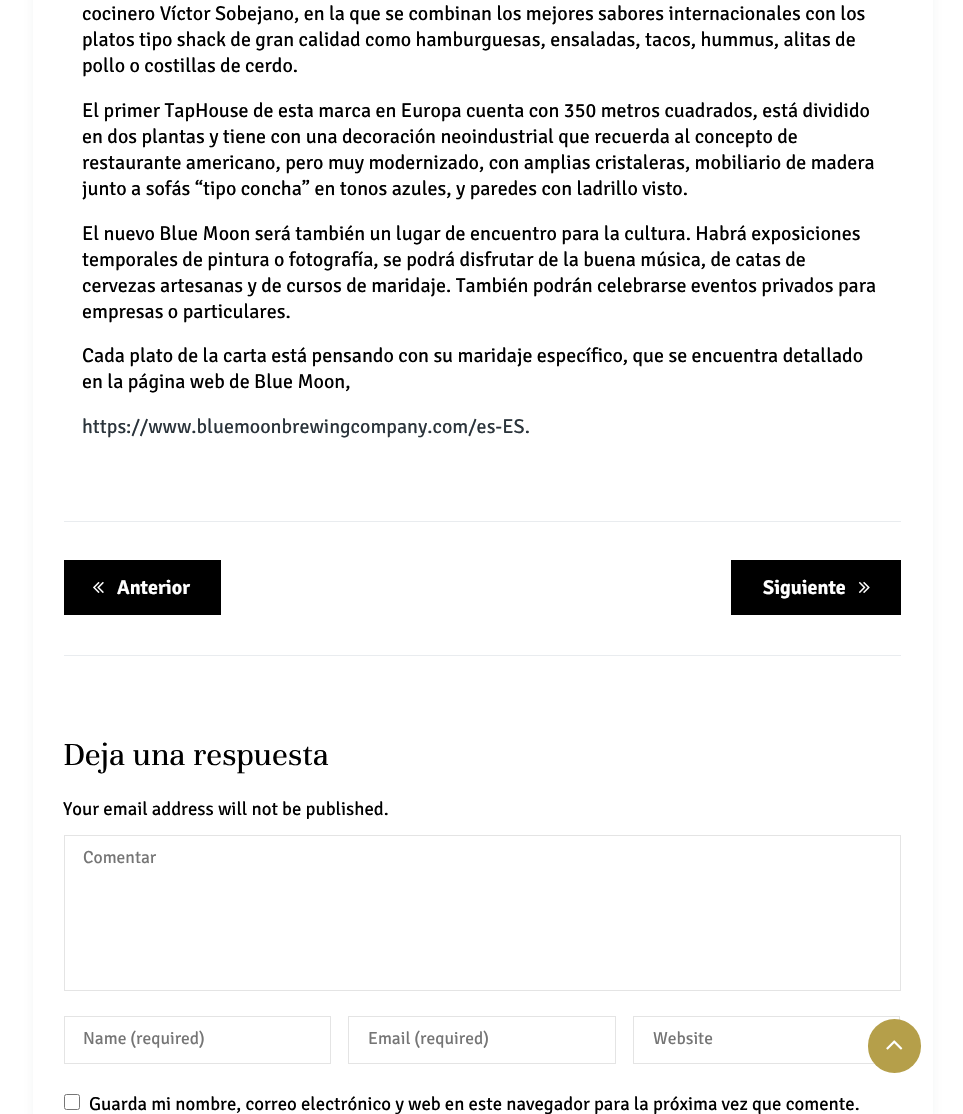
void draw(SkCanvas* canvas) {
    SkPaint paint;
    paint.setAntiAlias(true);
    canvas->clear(0xFFFFFFFF);
    paint.setColor(0x0D2B343B);
    paint.setMaskFilter(SkMaskFilter::MakeBlur(kNormal_SkBlurStyle, 6));
    canvas->drawRect(SkRect::MakeXYWH(33, -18, 900, 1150), paint);
    paint.setMaskFilter(nullptr);
    paint.setColor(0xFFFFFFFF);
    canvas->drawRect(SkRect::MakeXYWH(33, 0, 900, 1114), paint);
    SkFont font1(fontMgr->matchFamilyStyle("Signika Negative", SkFontStyle::Normal()), 20);
    font1.setSubpixel(true);
    paint.setColor(0xFF000000);
    canvas->drawString("cocinero Víctor Sobejano, en la que se combinan los mejores sabores internacionales con los", 82, 20, font1, paint);
    canvas->drawString("platos tipo shack de gran calidad como hamburguesas, ensaladas, tacos, hummus, alitas de", 82, 46, font1, paint);
    canvas->drawString("pollo o costillas de cerdo.", 82, 72, font1, paint);
    canvas->drawString("El primer TapHouse de esta marca en Europa cuenta con 350 metros cuadrados, está dividido", 82, 117, font1, paint);
    canvas->drawString("en dos plantas y tiene con una decoración neoindustrial que recuerda al concepto de", 82, 143, font1, paint);
    canvas->drawString("restaurante americano, pero muy modernizado, con amplias cristaleras, mobiliario de madera", 82, 169, font1, paint);
    canvas->drawString("junto a sofás “tipo concha” en tonos azules, y paredes con ladrillo visto.", 82, 195, font1, paint);
    canvas->drawString("El nuevo Blue Moon será también un lugar de encuentro para la cultura. Habrá exposiciones", 82, 240, font1, paint);
    canvas->drawString("temporales de pintura o fotografía, se podrá disfrutar de la buena música, de catas de", 82, 266, font1, paint);
    canvas->drawString("cervezas artesanas y de cursos de maridaje. También podrán celebrarse eventos privados para", 82, 292, font1, paint);
    canvas->drawString("empresas o particulares.", 82, 318, font1, paint);
    canvas->drawString("Cada plato de la carta está pensando con su maridaje específico, que se encuentra detallado", 82, 362, font1, paint);
    canvas->drawString("en la página web de Blue Moon,", 82, 388, font1, paint);
    paint.setColor(0xFF2B343B);
    canvas->drawString("https://www.bluemoonbrewingcompany.com/es-ES.", 82, 433, font1, paint);
    paint.setColor(0xFFE9ECEF);
    canvas->drawRect(SkRect::MakeXYWH(64, 521, 837, 1), paint);
    canvas->drawRect(SkRect::MakeXYWH(64, 655, 837, 1), paint);
    paint.setColor(0xFF000000);
    canvas->drawRect(SkRect::MakeXYWH(64, 560, 157, 55), paint);
    canvas->drawImageRect(SkImages::DeferredFromEncodedData(SkData::MakeFromFileName("img1.png")), SkRect::MakeXYWH(93, 581, 11, 12), SkSamplingOptions());
    SkFont font2(fontMgr->matchFamilyStyle("Signika Negative", SkFontStyle::Bold()), 20);
    font2.setSubpixel(true);
    paint.setColor(0xFFFFFFFF);
    canvas->drawString("Anterior", 117, 594, font2, paint);
    paint.setColor(0xFF000000);
    canvas->drawRect(SkRect::MakeXYWH(731, 560, 170, 55), paint);
    paint.setColor(0xFFFFFFFF);
    canvas->drawString("Siguiente", 763, 594, font2, paint);
    canvas->drawImageRect(SkImages::DeferredFromEncodedData(SkData::MakeFromFileName("img2.png")), SkRect::MakeXYWH(858, 581, 12, 12), SkSamplingOptions());
    SkFont font3(fontMgr->matchFamilyStyle("Unna", SkFontStyle::Normal()), 35);
    font3.setSubpixel(true);
    paint.setColor(0xFF000000);
    canvas->drawString("Deja una respuesta", 63, 765, font3, paint);
    SkFont font4(fontMgr->matchFamilyStyle("Signika Negative", SkFontStyle::Normal()), 18.75f);
    font4.setSubpixel(true);
    canvas->drawString("Your email address will not be published.", 63, 815, font4, paint);
    paint.setStyle(SkPaint::kStroke_Style);
    paint.setStrokeWidth(1);
    paint.setColor(0xFFE4E4E4);
    canvas->drawRect(SkRect::MakeXYWH(64.5f, 835.5f, 836, 155), paint);
    SkFont font5(fontMgr->matchFamilyStyle("Signika Negative", SkFontStyle::Normal()), 17.5f);
    font5.setSubpixel(true);
    paint.setStyle(SkPaint::kFill_Style);
    paint.setColor(0xFF757575);
    canvas->drawString("Comentar", 83, 863, font5, paint);
    paint.setStyle(SkPaint::kStroke_Style);
    paint.setColor(0xFFE4E4E4);
    canvas->drawRect(SkRect::MakeXYWH(64.5f, 1016.5f, 266, 47), paint);
    paint.setStyle(SkPaint::kFill_Style);
    paint.setColor(0xFF757575);
    canvas->drawString("Name (required)", 83, 1044, font5, paint);
    paint.setStyle(SkPaint::kStroke_Style);
    paint.setColor(0xFFE4E4E4);
    canvas->drawRect(SkRect::MakeXYWH(348.5f, 1016.5f, 267, 47), paint);
    paint.setStyle(SkPaint::kFill_Style);
    paint.setColor(0xFF757575);
    canvas->drawString("Email (required)", 368, 1044, font5, paint);
    paint.setStyle(SkPaint::kStroke_Style);
    paint.setColor(0xFFE4E4E4);
    canvas->drawRect(SkRect::MakeXYWH(633.5f, 1016.5f, 266, 47), paint);
    paint.setStyle(SkPaint::kFill_Style);
    paint.setColor(0xFF757575);
    canvas->drawString("Website", 653, 1044, font5, paint);
    paint.setStyle(SkPaint::kStroke_Style);
    paint.setColor(0xFF767676);
    canvas->drawRoundRect(SkRect::MakeXYWH(64.5f, 1094.5f, 15, 15), 2, 2, paint);
    paint.setStyle(SkPaint::kFill_Style);
    paint.setColor(0xFF000000);
    canvas->drawString("Guarda mi nombre, correo electrónico y web en este navegador para la próxima vez que comente.", 89, 1110, font4, paint);
    paint.setColor(0xFFB59F4A);
    canvas->drawRoundRect(SkRect::MakeXYWH(868, 1019, 53, 54), 26.5f, 26.5f, paint);
    canvas->drawImageRect(SkImages::DeferredFromEncodedData(SkData::MakeFromFileName("img3.png")), SkRect::MakeXYWH(886, 1040, 17, 10), SkSamplingOptions());
}
